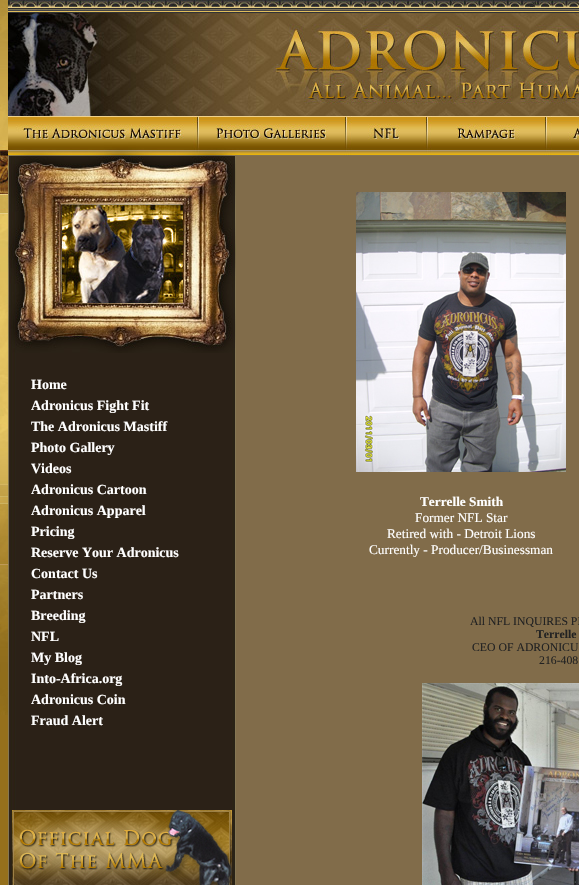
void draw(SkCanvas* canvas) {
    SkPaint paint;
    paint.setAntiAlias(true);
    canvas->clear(0xFF95701C);
    canvas->drawImageRect(SkImages::DeferredFromEncodedData(SkData::MakeFromFileName("img1.png")), SkRect::MakeXYWH(0, 0, 8, 715), SkSamplingOptions());
    canvas->drawImageRect(SkImages::DeferredFromEncodedData(SkData::MakeFromFileName("img2.png")), SkRect::MakeXYWH(8, 0, 571, 116), SkSamplingOptions());
    canvas->drawImageRect(SkImages::DeferredFromEncodedData(SkData::MakeFromFileName("img3.png")), SkRect::MakeXYWH(8, 116, 571, 40), SkSamplingOptions());
    canvas->drawImageRect(SkImages::DeferredFromEncodedData(SkData::MakeFromFileName("img4.png")), SkRect::MakeXYWH(8, 353, 228, 532), SkSamplingOptions());
    canvas->drawImageRect(SkImages::DeferredFromEncodedData(SkData::MakeFromFileName("img5.png")), SkRect::MakeXYWH(8, 156, 228, 197), SkSamplingOptions());
    SkFont font1(fontMgr->matchFamilyStyle("Liberation Serif", SkFontStyle::Bold()), 14);
    font1.setSubpixel(true);
    paint.setColor(0xFFFFFFFF);
    canvas->drawString("Home", 31, 389, font1, paint);
    canvas->drawString("Adronicus Fight Fit", 31, 410, font1, paint);
    canvas->drawString("The Adronicus Mastiff", 31, 431, font1, paint);
    canvas->drawString("Photo Gallery", 31, 452, font1, paint);
    canvas->drawString("Videos", 31, 473, font1, paint);
    canvas->drawString("Adronicus Cartoon", 31, 494, font1, paint);
    canvas->drawString("Adronicus Apparel", 31, 515, font1, paint);
    canvas->drawString("Pricing", 31, 536, font1, paint);
    canvas->drawString("Reserve Your Adronicus", 31, 557, font1, paint);
    canvas->drawString("Contact Us", 31, 578, font1, paint);
    canvas->drawString("Partners", 31, 599, font1, paint);
    canvas->drawString("Breeding", 31, 620, font1, paint);
    canvas->drawString("NFL", 31, 641, font1, paint);
    canvas->drawString("My Blog", 31, 662, font1, paint);
    canvas->drawString("Into-Africa.org", 31, 683, font1, paint);
    canvas->drawString("Adronicus Coin", 31, 704, font1, paint);
    canvas->drawString("Fraud Alert", 31, 725, font1, paint);
    canvas->drawImageRect(SkImages::DeferredFromEncodedData(SkData::MakeFromFileName("img6.png")), SkRect::MakeXYWH(12, 810, 220, 75), SkSamplingOptions());
    paint.setColor(0xFF816C4A);
    canvas->drawRect(SkRect::MakeXYWH(236, 156, 343, 729), paint);
    canvas->drawImageRect(SkImages::DeferredFromEncodedData(SkData::MakeFromFileName("img7.png")), SkRect::MakeXYWH(356, 192, 210, 280), SkSamplingOptions());
    SkFont font2(fontMgr->matchFamilyStyle("Liberation Serif", SkFontStyle::Bold()), 13.3f);
    font2.setSubpixel(true);
    paint.setColor(0xFFFFFFFF);
    canvas->drawString("Terrelle Smith", 420, 506, font2, paint);
    SkFont font3(fontMgr->matchFamilyStyle("Liberation Serif", SkFontStyle::Normal()), 13.3f);
    font3.setSubpixel(true);
    canvas->drawString("Former NFL Star", 415, 522, font3, paint);
    canvas->drawString("Retired with - Detroit Lions", 387, 538, font3, paint);
    canvas->drawString("Currently - Producer/Businessman", 369, 554, font3, paint);
    SkFont font4(fontMgr->matchFamilyStyle("Liberation Serif", SkFontStyle::Normal()), 11.75f);
    font4.setSubpixel(true);
    paint.setColor(0xFF222222);
    canvas->drawString("All NFL INQUIRES PL", 470, 625, font4, paint);
    SkFont font5(fontMgr->matchFamilyStyle("Liberation Serif", SkFontStyle::Bold()), 11.75f);
    font5.setSubpixel(true);
    canvas->drawString("Terrelle", 536, 638, font5, paint);
    canvas->drawString("CEO OF ADRONICU", 472, 651, font4, paint);
    canvas->drawString("216-408", 539, 664, font4, paint);
    canvas->drawImageRect(SkImages::DeferredFromEncodedData(SkData::MakeFromFileName("img8.png")), SkRect::MakeXYWH(422, 683, 157, 202), SkSamplingOptions());
}
